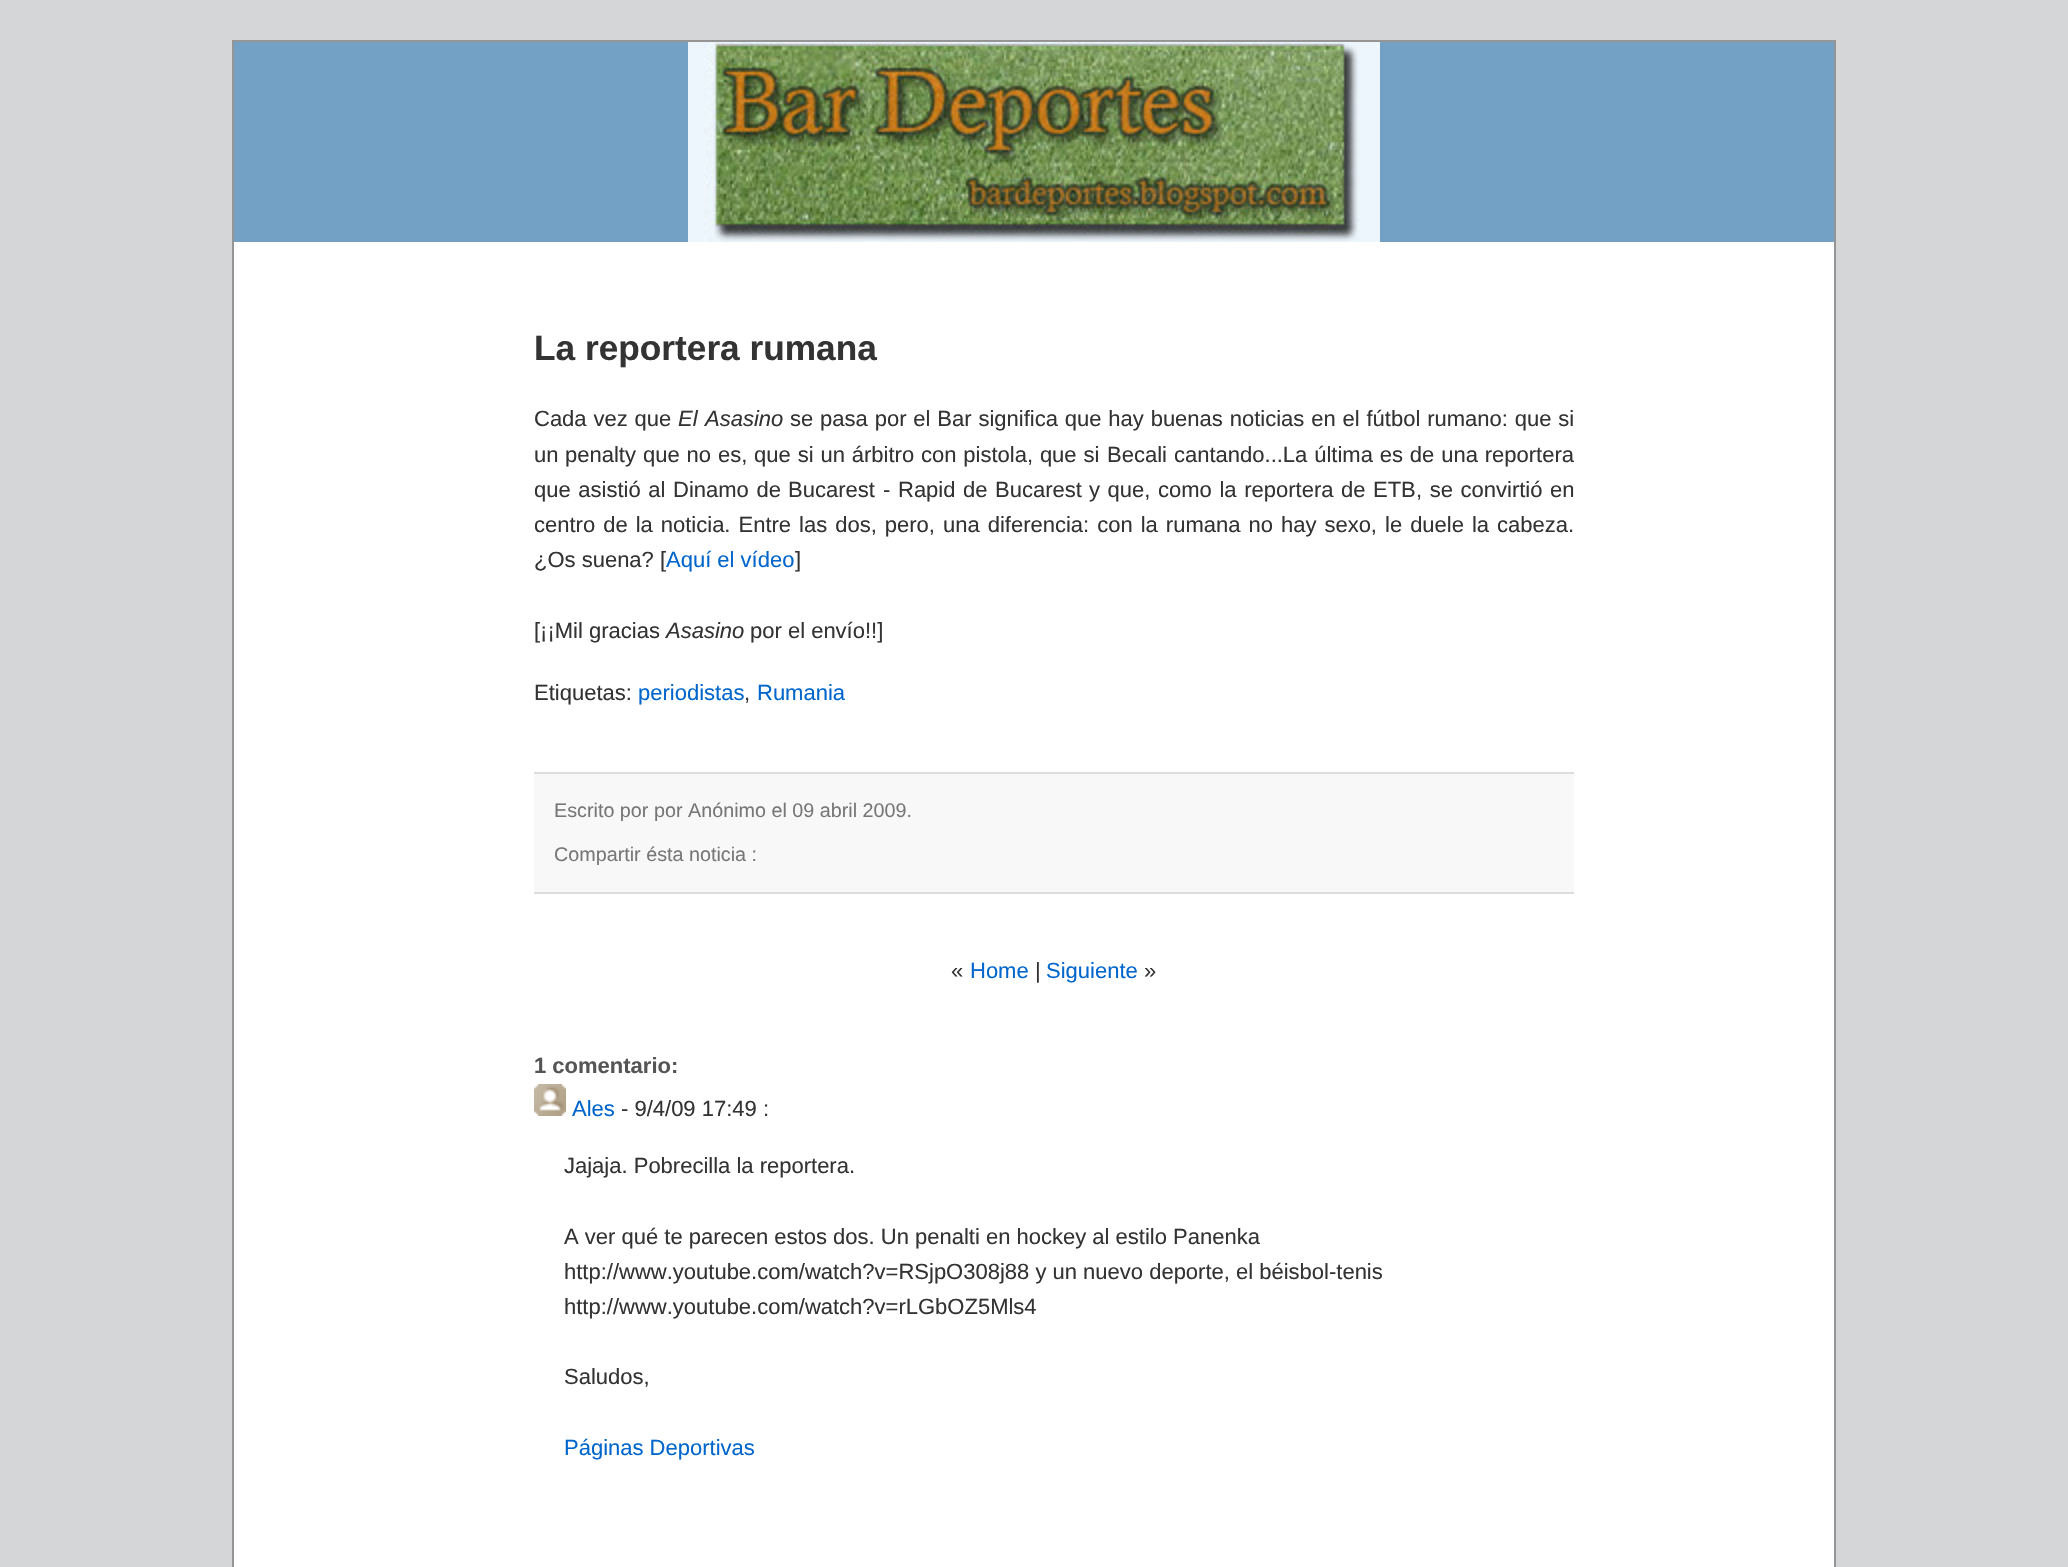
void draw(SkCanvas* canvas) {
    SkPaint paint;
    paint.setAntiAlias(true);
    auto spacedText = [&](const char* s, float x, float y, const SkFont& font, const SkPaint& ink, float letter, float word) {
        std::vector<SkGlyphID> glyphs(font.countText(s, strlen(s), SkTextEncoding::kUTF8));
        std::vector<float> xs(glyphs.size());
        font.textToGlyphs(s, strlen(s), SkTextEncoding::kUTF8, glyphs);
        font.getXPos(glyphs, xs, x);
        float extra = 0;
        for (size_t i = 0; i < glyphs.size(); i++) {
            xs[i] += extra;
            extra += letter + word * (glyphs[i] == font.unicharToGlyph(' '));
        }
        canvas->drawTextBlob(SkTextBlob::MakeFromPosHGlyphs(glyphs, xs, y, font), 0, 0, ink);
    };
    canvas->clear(0xFFD5D6D7);
    paint.setColor(0xFFFFFFFF);
    canvas->drawRect(SkRect::MakeXYWH(234, 242, 1600, 1325), paint);
    paint.setStyle(SkPaint::kStroke_Style);
    paint.setStrokeWidth(2);
    paint.setColor(0xFF959596);
    canvas->drawRect(SkRect::MakeXYWH(233, 41, 1602, 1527), paint);
    paint.setStyle(SkPaint::kFill_Style);
    paint.setColor(0xFF73A0C5);
    canvas->drawRect(SkRect::MakeXYWH(234, 42, 1600, 200), paint);
    canvas->drawImageRect(SkImages::DeferredFromEncodedData(SkData::MakeFromFileName("img1.png")), SkRect::MakeXYWH(688, 42, 692, 200), SkSamplingOptions());
    SkFont font1(fontMgr->matchFamilyStyle("Liberation Sans", SkFontStyle::Bold()), 35.25f);
    font1.setSubpixel(true);
    paint.setColor(0xFF333333);
    canvas->drawString("La reportera rumana", 534, 360, font1, paint);
    SkFont font2(fontMgr->matchFamilyStyle("Liberation Sans", SkFontStyle::Normal()), 22);
    font2.setSubpixel(true);
    spacedText("Cada vez que", 534, 426, font2, paint, 0, 0.75f);
    SkFont font3(fontMgr->matchFamilyStyle("Liberation Sans", SkFontStyle::Italic()), 22);
    font3.setSubpixel(true);
    canvas->drawString("El", 678, 426, font3, paint);
    canvas->drawString("Asasino", 705, 426, font3, paint);
    spacedText("se pasa por el Bar significa que hay buenas noticias en el fútbol rumano: que si", 790, 426, font2, paint, 0, 0.75f);
    canvas->drawString("un", 534, 462, font2, paint);
    canvas->drawString("penalty", 565, 462, font2, paint);
    spacedText("que no es, que si un árbitro con pistola, que si", 643, 462, font2, paint, 0, 0.75f);
    canvas->drawString("Becali", 1107, 462, font2, paint);
    spacedText("cantando...La última es de una reportera", 1174, 462, font2, paint, 0, 0.75f);
    spacedText("que asistió al Dinamo de", 534, 497, font2, paint, 0, 1.5f);
    canvas->drawString("Bucarest", 788, 497, font2, paint);
    canvas->drawString("-", 883, 497, font2, paint);
    canvas->drawString("Rapid", 898, 497, font2, paint);
    canvas->drawString("de", 963, 497, font2, paint);
    canvas->drawString("Bucarest", 995, 497, font2, paint);
    spacedText("y que, como la reportera de", 1089, 497, font2, paint, 0, 1.5f);
    canvas->drawString("ETB", 1373, 497, font2, paint);
    spacedText(", se convirtió en", 1416, 497, font2, paint, 0, 1.5f);
    spacedText("centro de la noticia. Entre las dos, pero, una diferencia: con la rumana no hay sexo, le duele la cabeza.", 534, 532, font2, paint, 0, 1.9f);
    canvas->drawString("¿Os suena? [", 534, 567, font2, paint);
    paint.setColor(0xFF0066CC);
    canvas->drawString("Aquí el vídeo", 666, 567, font2, paint);
    paint.setColor(0xFF333333);
    canvas->drawString("]", 795, 567, font2, paint);
    canvas->drawString("[¡¡Mil gracias", 534, 638, font2, paint);
    canvas->drawString("Asasino", 666, 638, font3, paint);
    canvas->drawString("por el envío!!]", 750, 638, font2, paint);
    canvas->drawString("Etiquetas:", 534, 700, font2, paint);
    paint.setColor(0xFF0066CC);
    canvas->drawString("periodistas", 638, 700, font2, paint);
    paint.setColor(0xFF333333);
    canvas->drawString(",", 744, 700, font2, paint);
    paint.setColor(0xFF0066CC);
    canvas->drawString("Rumania", 757, 700, font2, paint);
    paint.setColor(0xFFF8F8F8);
    canvas->drawRect(SkRect::MakeXYWH(534, 774, 1040, 118), paint);
    paint.setColor(0xFFDDDDDD);
    canvas->drawRect(SkRect::MakeXYWH(534, 772, 1040, 2), paint);
    canvas->drawRect(SkRect::MakeXYWH(534, 892, 1040, 2), paint);
    SkFont font4(fontMgr->matchFamilyStyle("Liberation Sans", SkFontStyle::Normal()), 19.75f);
    font4.setSubpixel(true);
    paint.setColor(0xFF777777);
    canvas->drawString("Escrito por", 554, 817, font4, paint);
    canvas->drawString("por Anónimo el 09 abril 2009.", 654, 817, font4, paint);
    canvas->drawString("Compartir ésta noticia :", 554, 861, font4, paint);
    paint.setColor(0xFF333333);
    canvas->drawString("«", 951, 978, font2, paint);
    paint.setColor(0xFF0066CC);
    canvas->drawString("Home", 970, 978, font2, paint);
    paint.setColor(0xFF333333);
    canvas->drawString("|", 1035, 978, font2, paint);
    paint.setColor(0xFF0066CC);
    canvas->drawString("Siguiente", 1046, 978, font2, paint);
    paint.setColor(0xFF333333);
    canvas->drawString("»", 1144, 978, font2, paint);
    SkFont font5(fontMgr->matchFamilyStyle("Liberation Sans", SkFontStyle::Bold()), 22);
    font5.setSubpixel(true);
    paint.setColor(0xFF555555);
    canvas->drawString("1 comentario:", 534, 1073, font5, paint);
    canvas->drawImageRect(SkImages::DeferredFromEncodedData(SkData::MakeFromFileName("img2.png")), SkRect::MakeXYWH(534, 1084, 32, 32), SkSamplingOptions());
    paint.setColor(0xFF0066CC);
    canvas->drawString("Ales", 572, 1116, font2, paint);
    paint.setColor(0xFF333333);
    canvas->drawString("- 9/4/09 17:49 :", 621, 1116, font2, paint);
    canvas->drawString("Jajaja. Pobrecilla la reportera.", 564, 1173, font2, paint);
    canvas->drawString("A ver qué te parecen estos dos. Un penalti en hockey al estilo Panenka", 564, 1244, font2, paint);
    canvas->drawString("http://www.youtube.com/watch?v=RSjpO308j88 y un nuevo deporte, el béisbol-tenis", 564, 1279, font2, paint);
    canvas->drawString("http://www.youtube.com/watch?v=rLGbOZ5Mls4", 564, 1314, font2, paint);
    canvas->drawString("Saludos,", 564, 1384, font2, paint);
    paint.setColor(0xFF0066CC);
    canvas->drawString("Páginas Deportivas", 564, 1455, font2, paint);
}
